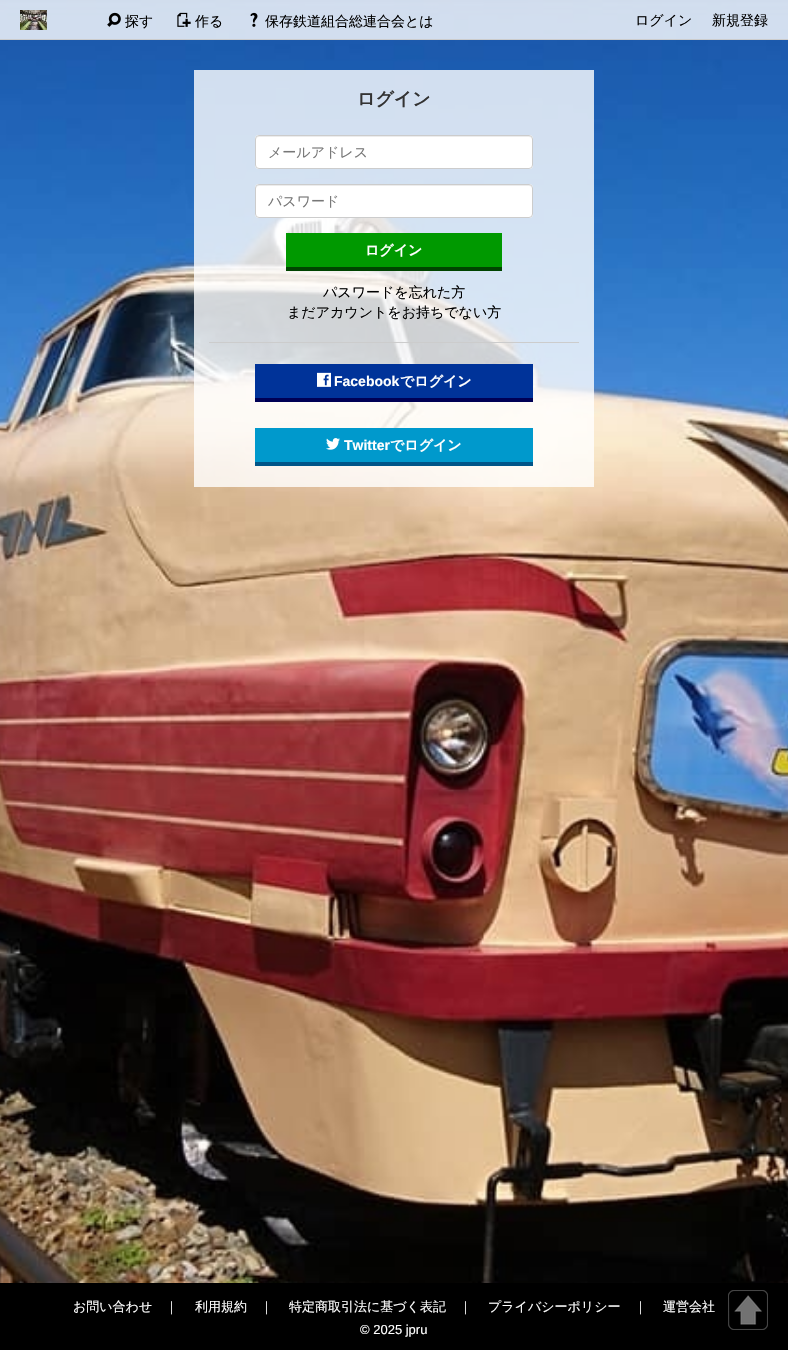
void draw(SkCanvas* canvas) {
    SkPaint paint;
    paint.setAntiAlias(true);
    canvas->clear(0xFFFFFFFF);
    canvas->drawImageRect(SkImages::DeferredFromEncodedData(SkData::MakeFromFileName("img1.png")), SkRect::MakeXYWH(0, 0, 788, 1283), SkSamplingOptions());
    paint.setColor(0xCCFFFFFF);
    canvas->drawRect(SkRect::MakeXYWH(0, 0, 788, 39), paint);
    paint.setColor(0xFFCCCCCC);
    canvas->drawRect(SkRect::MakeXYWH(0, 39, 788, 1), paint);
    canvas->drawImageRect(SkImages::DeferredFromEncodedData(SkData::MakeFromFileName("img2.png")), SkRect::MakeXYWH(20, 10, 27, 20), SkSamplingOptions());
    canvas->drawImageRect(SkImages::DeferredFromEncodedData(SkData::MakeFromFileName("img3.png")), SkRect::MakeXYWH(107, 12, 14, 15), SkSamplingOptions());
    SkFont font1(fontMgr->matchFamilyStyle("WenQuanYi Zen Hei", SkFontStyle(500, SkFontStyle::kNormal_Width, SkFontStyle::kUpright_Slant)), 14);
    font1.setSubpixel(true);
    paint.setColor(0xFF000000);
    canvas->drawString("探す", 125, 26, font1, paint);
    canvas->drawImageRect(SkImages::DeferredFromEncodedData(SkData::MakeFromFileName("img4.png")), SkRect::MakeXYWH(177, 12, 14, 15), SkSamplingOptions());
    canvas->drawString("作る", 195, 26, font1, paint);
    canvas->drawImageRect(SkImages::DeferredFromEncodedData(SkData::MakeFromFileName("img5.png")), SkRect::MakeXYWH(250, 12, 8, 15), SkSamplingOptions());
    canvas->drawString("保存鉄道組合総連合会とは", 265, 26, font1, paint);
    canvas->drawString("ログイン", 635, 25, font1, paint);
    canvas->drawString("新規登録", 712, 25, font1, paint);
    paint.setColor(0xCCFFFFFF);
    canvas->drawRect(SkRect::MakeXYWH(194, 70, 400, 417), paint);
    SkFont font2(fontMgr->matchFamilyStyle("WenQuanYi Zen Hei", SkFontStyle::Bold()), 18);
    font2.setSubpixel(true);
    paint.setColor(0xFF333333);
    canvas->drawString("ログイン", 357, 105, font2, paint);
    paint.setColor(0xFFFFFFFF);
    canvas->drawRoundRect(SkRect::MakeXYWH(255, 135, 278, 34), 4, 4, paint);
    paint.setColor(0xFFECECEC);
    canvas->drawPath(SkPathBuilder().moveTo(259, 137).lineTo(529, 137).cubicTo(531, 137, 532, 138, 532, 140).lineTo(532, 139).cubicTo(532, 137, 531, 136, 529, 136).lineTo(259, 136).cubicTo(257, 136, 256, 137, 256, 139).lineTo(256, 140).cubicTo(256, 138, 257, 137, 259, 137).close().detach(), paint);
    paint.setStyle(SkPaint::kStroke_Style);
    paint.setStrokeWidth(1);
    paint.setColor(0xFFCCCCCC);
    canvas->drawRoundRect(SkRect::MakeXYWH(255.5f, 135.5f, 277, 33), 3.5f, 3.5f, paint);
    paint.setStyle(SkPaint::kFill_Style);
    paint.setColor(0xFF777777);
    canvas->drawString("メールアドレス", 268, 157, font1, paint);
    paint.setColor(0xFFFFFFFF);
    canvas->drawRoundRect(SkRect::MakeXYWH(255, 184, 278, 34), 4, 4, paint);
    paint.setColor(0xFFECECEC);
    canvas->drawPath(SkPathBuilder().moveTo(259, 186).lineTo(529, 186).cubicTo(531, 186, 532, 187, 532, 189).lineTo(532, 188).cubicTo(532, 186, 531, 185, 529, 185).lineTo(259, 185).cubicTo(257, 185, 256, 186, 256, 188).lineTo(256, 189).cubicTo(256, 187, 257, 186, 259, 186).close().detach(), paint);
    paint.setStyle(SkPaint::kStroke_Style);
    paint.setColor(0xFFCCCCCC);
    canvas->drawRoundRect(SkRect::MakeXYWH(255.5f, 184.5f, 277, 33), 3.5f, 3.5f, paint);
    paint.setStyle(SkPaint::kFill_Style);
    paint.setColor(0xFF777777);
    canvas->drawString("パスワード", 268, 206, font1, paint);
    paint.setColor(0xFF004400);
    canvas->drawRect(SkRect::MakeXYWH(286, 267, 216, 4), paint);
    paint.setColor(0xFF009900);
    canvas->drawRect(SkRect::MakeXYWH(286, 233, 216, 34), paint);
    SkFont font3(fontMgr->matchFamilyStyle("WenQuanYi Zen Hei", SkFontStyle::Bold()), 14);
    font3.setSubpixel(true);
    paint.setColor(0xFFFFFFFF);
    canvas->drawString("ログイン", 365, 255, font3, paint);
    paint.setColor(0xFF000000);
    canvas->drawString("パスワードを忘れた方", 323, 297, font1, paint);
    canvas->drawString("まだアカウントをお持ちでない方", 287, 317, font1, paint);
    paint.setColor(0xFFCCCCCC);
    canvas->drawRect(SkRect::MakeXYWH(209, 342, 370, 1), paint);
    paint.setColor(0xFF000055);
    canvas->drawRect(SkRect::MakeXYWH(255, 398, 278, 4), paint);
    paint.setColor(0xFF003399);
    canvas->drawRect(SkRect::MakeXYWH(255, 364, 278, 34), paint);
    canvas->drawImageRect(SkImages::DeferredFromEncodedData(SkData::MakeFromFileName("img6.png")), SkRect::MakeXYWH(317, 372, 14, 15), SkSamplingOptions());
    SkFont font4(fontMgr->matchFamilyStyle("Liberation Sans", SkFontStyle::Bold()), 14);
    font4.setSubpixel(true);
    paint.setColor(0xFFFFFFFF);
    canvas->drawString("Facebook", 334, 386, font4, paint);
    canvas->drawString("でログイン", 400, 386, font3, paint);
    paint.setColor(0xFF005588);
    canvas->drawRect(SkRect::MakeXYWH(255, 462, 278, 4), paint);
    paint.setColor(0xFF0099CC);
    canvas->drawRect(SkRect::MakeXYWH(255, 428, 278, 34), paint);
    canvas->drawImageRect(SkImages::DeferredFromEncodedData(SkData::MakeFromFileName("img7.png")), SkRect::MakeXYWH(326, 438, 14, 12), SkSamplingOptions());
    paint.setColor(0xFFFFFFFF);
    canvas->drawString("Twitter", 344, 450, font4, paint);
    canvas->drawString("でログイン", 390, 450, font3, paint);
    paint.setColor(0xFF000000);
    canvas->drawRect(SkRect::MakeXYWH(0, 1283, 788, 67), paint);
    SkFont font5(fontMgr->matchFamilyStyle("WenQuanYi Zen Hei", SkFontStyle(500, SkFontStyle::kNormal_Width, SkFontStyle::kUpright_Slant)), 13);
    font5.setSubpixel(true);
    paint.setColor(0xFFFFFFFF);
    canvas->drawString("お問い合わせ", 73, 1311, font5, paint);
    canvas->drawString("｜", 165, 1311, font5, paint);
    canvas->drawString("利用規約", 195, 1311, font5, paint);
    canvas->drawString("｜", 260, 1311, font5, paint);
    canvas->drawString("特定商取引法に基づく表記", 289, 1311, font5, paint);
    canvas->drawString("｜", 459, 1311, font5, paint);
    canvas->drawString("プライバシーポリシー", 488, 1311, font5, paint);
    canvas->drawString("｜", 634, 1311, font5, paint);
    canvas->drawString("運営会社", 663, 1311, font5, paint);
    SkFont font6(fontMgr->matchFamilyStyle("Liberation Sans", SkFontStyle::Normal()), 13);
    font6.setSubpixel(true);
    canvas->drawString("© 2025 jpru", 360, 1334, font6, paint);
    canvas->drawImageRect(SkImages::DeferredFromEncodedData(SkData::MakeFromFileName("img8.png")), SkRect::MakeXYWH(728, 1290, 40, 40), SkSamplingOptions());
}
